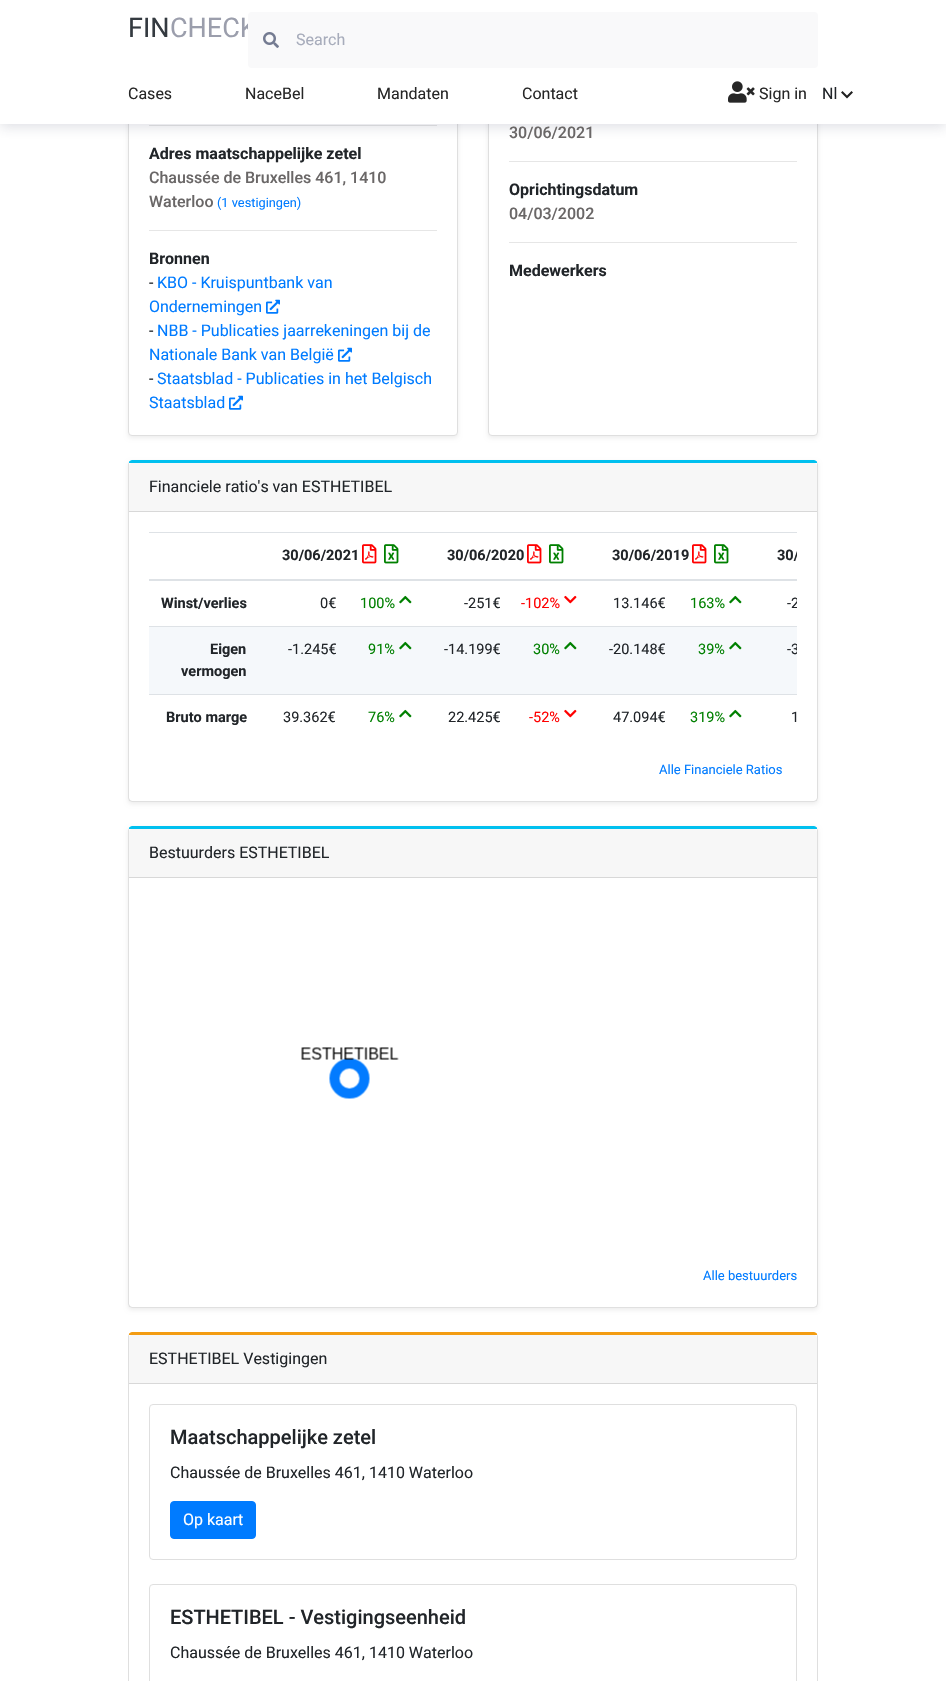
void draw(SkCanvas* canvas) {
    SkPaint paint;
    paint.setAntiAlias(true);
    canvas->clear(0xFFFFFFFF);
    paint.setColor(0x12000000);
    paint.setMaskFilter(SkMaskFilter::MakeBlur(kNormal_SkBlurStyle, 2));
    canvas->drawRoundRect(SkRect::MakeXYWH(128, -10, 330, 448), 4, 4, paint);
    paint.setMaskFilter(nullptr);
    paint.setColor(0xFFFFFFFF);
    canvas->drawRoundRect(SkRect::MakeXYWH(128.5f, -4.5f, 329, 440), 3.5f, 3.5f, paint);
    paint.setStyle(SkPaint::kStroke_Style);
    paint.setStrokeWidth(1);
    paint.setColor(0xFFDFDFDF);
    canvas->drawRoundRect(SkRect::MakeXYWH(128.5f, -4.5f, 329, 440), 3.5f, 3.5f, paint);
    paint.setStyle(SkPaint::kFill_Style);
    paint.setColor(0xFFE6E6E6);
    canvas->drawRect(SkRect::MakeXYWH(149, 125, 288, 1), paint);
    paint.setColor(0x12000000);
    paint.setMaskFilter(SkMaskFilter::MakeBlur(kNormal_SkBlurStyle, 2));
    canvas->drawRoundRect(SkRect::MakeXYWH(488, -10, 330, 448), 4, 4, paint);
    paint.setMaskFilter(nullptr);
    paint.setColor(0xFFFFFFFF);
    canvas->drawRoundRect(SkRect::MakeXYWH(488.5f, -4.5f, 329, 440), 3.5f, 3.5f, paint);
    paint.setStyle(SkPaint::kStroke_Style);
    paint.setColor(0xFFDFDFDF);
    canvas->drawRoundRect(SkRect::MakeXYWH(488.5f, -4.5f, 329, 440), 3.5f, 3.5f, paint);
    paint.setStyle(SkPaint::kFill_Style);
    paint.setColor(0x29323B58);
    paint.setMaskFilter(SkMaskFilter::MakeBlur(kNormal_SkBlurStyle, 6));
    canvas->drawRect(SkRect::MakeXYWH(0, 3, 946, 124), paint);
    paint.setMaskFilter(nullptr);
    paint.setColor(0xFFFFFFFF);
    canvas->drawRect(SkRect::MakeXYWH(0, 0, 946, 124), paint);
    SkFont font1(fontMgr->matchFamilyStyle("Roboto", SkFontStyle::Normal()), 27);
    font1.setSubpixel(true);
    paint.setColor(0xFF343A40);
    canvas->drawString("FIN", 128, 37, font1, paint);
    paint.setColor(0xFF9B9EAC);
    canvas->drawString("CHECK", 170, 37, font1, paint);
    paint.setColor(0xFFF9F9FA);
    canvas->drawRoundRect(SkRect::MakeXYWH(248, 12, 570, 56), 4, 4, paint);
    canvas->drawImageRect(SkImages::DeferredFromEncodedData(SkData::MakeFromFileName("img1.png")), SkRect::MakeXYWH(263, 32, 16, 16), SkSamplingOptions());
    SkFont font2(fontMgr->matchFamilyStyle("Roboto", SkFontStyle::Normal()), 16);
    font2.setSubpixel(true);
    paint.setColor(0xFFA7ACBB);
    canvas->drawString("Search", 296, 45, font2, paint);
    paint.setColor(0xFF272727);
    canvas->drawString("Cases", 128, 99, font2, paint);
    canvas->drawString("NaceBel", 245, 99, font2, paint);
    canvas->drawString("Mandaten", 377, 99, font2, paint);
    canvas->drawString("Contact", 522, 99, font2, paint);
    canvas->drawImageRect(SkImages::DeferredFromEncodedData(SkData::MakeFromFileName("img2.png")), SkRect::MakeXYWH(728, 81, 27, 22), SkSamplingOptions());
    canvas->drawString("Sign in", 759, 99, font2, paint);
    paint.setColor(0xFF212529);
    canvas->drawString("Nl", 822, 99, font2, paint);
    paint.setColor(0xFF212121);
    canvas->drawPath(SkPathBuilder().moveTo(842.5f, 91).lineTo(841, 92.5f).lineTo(847, 98.5f).lineTo(853, 92.5f).lineTo(851.5f, 91).lineTo(847, 95.5f).close().detach(), paint);
    SkFont font3(fontMgr->matchFamilyStyle("Roboto", SkFontStyle::Bold()), 16);
    font3.setSubpixel(true);
    paint.setColor(0xFF212529);
    canvas->drawString("Adres maatschappelijke zetel", 149, 159, font3, paint);
    SkFont font4(fontMgr->matchFamilyStyle("Roboto", SkFontStyle(500, SkFontStyle::kNormal_Width, SkFontStyle::kUpright_Slant)), 16);
    font4.setSubpixel(true);
    paint.setColor(0xFF6A6767);
    canvas->drawString("Chaussée de Bruxelles 461, 1410", 149, 183, font4, paint);
    canvas->drawString("Waterloo", 149, 207, font4, paint);
    SkFont font5(fontMgr->matchFamilyStyle("Roboto", SkFontStyle::Normal()), 12.75f);
    font5.setSubpixel(true);
    paint.setColor(0xFF007BFF);
    canvas->drawString("(1 vestigingen)", 217, 207, font5, paint);
    paint.setColor(0xFFE6E6E6);
    canvas->drawRect(SkRect::MakeXYWH(149, 230, 288, 1), paint);
    paint.setColor(0xFF212529);
    canvas->drawString("Bronnen", 149, 264, font3, paint);
    paint.setColor(0xFF007BFF);
    canvas->drawString("KBO - Kruispuntbank van", 157, 288, font2, paint);
    canvas->drawString("Ondernemingen", 149, 312, font2, paint);
    canvas->drawImageRect(SkImages::DeferredFromEncodedData(SkData::MakeFromFileName("img3.png")), SkRect::MakeXYWH(266, 299, 14, 15), SkSamplingOptions());
    paint.setColor(0xFF212529);
    canvas->drawString("-", 149, 288, font2, paint);
    paint.setColor(0xFF007BFF);
    canvas->drawString("NBB - Publicaties jaarrekeningen bij de", 157, 336, font2, paint);
    canvas->drawString("Nationale Bank van België", 149, 360, font2, paint);
    canvas->drawImageRect(SkImages::DeferredFromEncodedData(SkData::MakeFromFileName("img3.png")), SkRect::MakeXYWH(338, 347, 14, 15), SkSamplingOptions());
    paint.setColor(0xFF212529);
    canvas->drawString("-", 149, 336, font2, paint);
    paint.setColor(0xFF007BFF);
    canvas->drawString("Staatsblad - Publicaties in het Belgisch", 157, 384, font2, paint);
    canvas->drawString("Staatsblad", 149, 408, font2, paint);
    canvas->drawImageRect(SkImages::DeferredFromEncodedData(SkData::MakeFromFileName("img3.png")), SkRect::MakeXYWH(229, 395, 14, 15), SkSamplingOptions());
    paint.setColor(0xFF212529);
    canvas->drawString("-", 149, 384, font2, paint);
    paint.setColor(0xFF6A6767);
    canvas->drawString("30/06/2021", 509, 138, font4, paint);
    paint.setColor(0xFFE6E6E6);
    canvas->drawRect(SkRect::MakeXYWH(509, 161, 288, 1), paint);
    paint.setColor(0xFF212529);
    canvas->drawString("Oprichtingsdatum", 509, 195, font3, paint);
    paint.setColor(0xFF6A6767);
    canvas->drawString("04/03/2002", 509, 219, font4, paint);
    paint.setColor(0xFFE6E6E6);
    canvas->drawRect(SkRect::MakeXYWH(509, 242, 288, 1), paint);
    paint.setColor(0xFF212529);
    canvas->drawString("Medewerkers", 509, 276, font3, paint);
    paint.setColor(0x12000000);
    paint.setMaskFilter(SkMaskFilter::MakeBlur(kNormal_SkBlurStyle, 2));
    canvas->drawRoundRect(SkRect::MakeXYWH(128, 462, 690, 342), 4, 4, paint);
    paint.setMaskFilter(nullptr);
    paint.setColor(0xFFFFFFFF);
    canvas->drawRoundRect(SkRect::MakeXYWH(128, 460, 690, 342), 4, 4, paint);
    paint.setColor(0xFF00C0EF);
    canvas->drawPath(SkPathBuilder().moveTo(132, 460).cubicTo(131, 460, 129, 461, 129, 462).lineTo(129, 463).lineTo(132, 463).lineTo(814, 463).lineTo(817, 463).lineTo(817, 462).cubicTo(817, 461, 815, 460, 814, 460).close().detach(), paint);
    paint.setColor(0xFFDFDFDF);
    canvas->drawPath(SkPathBuilder().moveTo(818, 798).lineTo(818, 464).lineTo(817, 462).lineTo(817, 463).lineTo(817, 798).lineTo(816, 800).lineTo(817, 801).close().detach(), paint);
    paint.setColor(0x1F000000);
    canvas->drawPath(SkPathBuilder().moveTo(132, 802).lineTo(814, 802).lineTo(817, 801).lineTo(816, 800).lineTo(814, 801).lineTo(132, 801).lineTo(130, 800).lineTo(129, 801).close().detach(), paint);
    canvas->drawPath(SkPathBuilder().moveTo(128, 464).lineTo(128, 798).lineTo(129, 801).lineTo(130, 800).lineTo(129, 798).lineTo(129, 463).lineTo(129, 462).close().detach(), paint);
    paint.setColor(0xFFF7F7F7);
    canvas->drawPath(SkPathBuilder().moveTo(132, 463).lineTo(814, 463).cubicTo(815.5f, 463, 817, 464.5f, 817, 466).lineTo(817, 512).lineTo(129, 512).lineTo(129, 466).cubicTo(129, 464.5f, 130.5f, 463, 132, 463).close().detach(), paint);
    paint.setColor(0xFFD8D8D8);
    canvas->drawRect(SkRect::MakeXYWH(129, 511, 688, 1), paint);
    paint.setColor(0xFF212529);
    canvas->drawString("Financiele ratio's van ESTHETIBEL", 149, 492, font2, paint);
    SkFont font6(fontMgr->matchFamilyStyle("Roboto", SkFontStyle::Bold()), 14.5f);
    font6.setSubpixel(true);
    canvas->drawString("30/06/2021", 282, 560, font6, paint);
    canvas->drawImageRect(SkImages::DeferredFromEncodedData(SkData::MakeFromFileName("img4.png")), SkRect::MakeXYWH(362, 544, 15, 20), SkSamplingOptions());
    canvas->drawImageRect(SkImages::DeferredFromEncodedData(SkData::MakeFromFileName("img5.png")), SkRect::MakeXYWH(384, 544, 15, 20), SkSamplingOptions());
    canvas->drawString("30/06/2020", 447, 560, font6, paint);
    canvas->drawImageRect(SkImages::DeferredFromEncodedData(SkData::MakeFromFileName("img4.png")), SkRect::MakeXYWH(527, 544, 15, 20), SkSamplingOptions());
    canvas->drawImageRect(SkImages::DeferredFromEncodedData(SkData::MakeFromFileName("img5.png")), SkRect::MakeXYWH(549, 544, 15, 20), SkSamplingOptions());
    canvas->drawString("30/06/2019", 612, 560, font6, paint);
    canvas->drawImageRect(SkImages::DeferredFromEncodedData(SkData::MakeFromFileName("img4.png")), SkRect::MakeXYWH(692, 544, 15, 20), SkSamplingOptions());
    canvas->drawImageRect(SkImages::DeferredFromEncodedData(SkData::MakeFromFileName("img5.png")), SkRect::MakeXYWH(714, 544, 15, 20), SkSamplingOptions());
    paint.setColor(0xFFDEE2E6);
    canvas->drawRect(SkRect::MakeXYWH(149, 532, 648, 1), paint);
    canvas->drawRect(SkRect::MakeXYWH(149, 579, 648, 2), paint);
    canvas->save();
    canvas->clipRect(SkRect::MakeXYWH(149, 532, 648, 225));
    paint.setColor(0xFF212529);
    canvas->drawString("30/", 777, 560, font6, paint);
    canvas->restore();
    canvas->drawString("Winst/verlies", 161, 608, font6, paint);
    SkFont font7(fontMgr->matchFamilyStyle("Roboto", SkFontStyle::Normal()), 14.5f);
    font7.setSubpixel(true);
    canvas->drawString("0€", 320, 608, font7, paint);
    paint.setColor(0xFF008000);
    canvas->drawString("100%", 360, 608, font7, paint);
    canvas->drawImageRect(SkImages::DeferredFromEncodedData(SkData::MakeFromFileName("img6.png")), SkRect::MakeXYWH(399, 595, 13, 9), SkSamplingOptions());
    paint.setColor(0xFF212529);
    canvas->drawString("-251€", 464, 608, font7, paint);
    paint.setColor(0xFFFF0000);
    canvas->drawString("-102%", 521, 608, font7, paint);
    canvas->drawImageRect(SkImages::DeferredFromEncodedData(SkData::MakeFromFileName("img7.png")), SkRect::MakeXYWH(564, 595, 13, 9), SkSamplingOptions());
    paint.setColor(0xFF212529);
    canvas->drawString("13.146€", 613, 608, font7, paint);
    paint.setColor(0xFF008000);
    canvas->drawString("163%", 690, 608, font7, paint);
    canvas->drawImageRect(SkImages::DeferredFromEncodedData(SkData::MakeFromFileName("img6.png")), SkRect::MakeXYWH(729, 595, 13, 9), SkSamplingOptions());
    canvas->save();
    canvas->clipRect(SkRect::MakeXYWH(149, 532, 648, 225));
    paint.setColor(0xFF212529);
    canvas->drawString("-2", 787, 608, font7, paint);
    canvas->restore();
    paint.setColor(0xFFF5F8FB);
    canvas->drawRect(SkRect::MakeXYWH(149, 627, 648, 67), paint);
    paint.setColor(0xFF212529);
    canvas->drawString("Eigen", 210, 654, font6, paint);
    canvas->drawString("vermogen", 181, 676, font6, paint);
    canvas->drawString("-1.245€", 288, 654, font7, paint);
    paint.setColor(0xFF008000);
    canvas->drawString("91%", 368, 654, font7, paint);
    canvas->drawImageRect(SkImages::DeferredFromEncodedData(SkData::MakeFromFileName("img8.png")), SkRect::MakeXYWH(399, 641, 13, 9), SkSamplingOptions());
    paint.setColor(0xFF212529);
    canvas->drawString("-14.199€", 444, 654, font7, paint);
    paint.setColor(0xFF008000);
    canvas->drawString("30%", 533, 654, font7, paint);
    canvas->drawImageRect(SkImages::DeferredFromEncodedData(SkData::MakeFromFileName("img8.png")), SkRect::MakeXYWH(564, 641, 13, 9), SkSamplingOptions());
    paint.setColor(0xFF212529);
    canvas->drawString("-20.148€", 609, 654, font7, paint);
    paint.setColor(0xFF008000);
    canvas->drawString("39%", 698, 654, font7, paint);
    canvas->drawImageRect(SkImages::DeferredFromEncodedData(SkData::MakeFromFileName("img8.png")), SkRect::MakeXYWH(729, 641, 13, 9), SkSamplingOptions());
    paint.setColor(0xFFDEE2E6);
    canvas->drawRect(SkRect::MakeXYWH(149, 626, 648, 1), paint);
    canvas->save();
    canvas->clipRect(SkRect::MakeXYWH(149, 532, 648, 225));
    paint.setColor(0xFF212529);
    canvas->drawString("-3", 787, 654, font7, paint);
    canvas->restore();
    canvas->drawString("Bruto marge", 166, 722, font6, paint);
    canvas->drawString("39.362€", 283, 722, font7, paint);
    paint.setColor(0xFF008000);
    canvas->drawString("76%", 368, 722, font7, paint);
    canvas->drawImageRect(SkImages::DeferredFromEncodedData(SkData::MakeFromFileName("img6.png")), SkRect::MakeXYWH(399, 709, 13, 9), SkSamplingOptions());
    paint.setColor(0xFF212529);
    canvas->drawString("22.425€", 448, 722, font7, paint);
    paint.setColor(0xFFFF0000);
    canvas->drawString("-52%", 529, 722, font7, paint);
    canvas->drawImageRect(SkImages::DeferredFromEncodedData(SkData::MakeFromFileName("img7.png")), SkRect::MakeXYWH(564, 709, 13, 9), SkSamplingOptions());
    paint.setColor(0xFF212529);
    canvas->drawString("47.094€", 613, 722, font7, paint);
    paint.setColor(0xFF008000);
    canvas->drawString("319%", 690, 722, font7, paint);
    canvas->drawImageRect(SkImages::DeferredFromEncodedData(SkData::MakeFromFileName("img6.png")), SkRect::MakeXYWH(729, 709, 13, 9), SkSamplingOptions());
    paint.setColor(0xFFDEE2E6);
    canvas->drawRect(SkRect::MakeXYWH(149, 694, 648, 1), paint);
    paint.setColor(0xFF212529);
    canvas->drawString("1", 791, 722, font7, paint);
    SkFont font8(fontMgr->matchFamilyStyle("Roboto", SkFontStyle::Normal()), 13);
    font8.setSubpixel(true);
    paint.setColor(0xFF007BFF);
    canvas->drawString("Alle Financiele Ratios", 659, 774, font8, paint);
    paint.setColor(0x12000000);
    paint.setMaskFilter(SkMaskFilter::MakeBlur(kNormal_SkBlurStyle, 2));
    canvas->drawRoundRect(SkRect::MakeXYWH(128, 828, 690, 482), 4, 4, paint);
    paint.setMaskFilter(nullptr);
    paint.setColor(0xFFFFFFFF);
    canvas->drawRoundRect(SkRect::MakeXYWH(128, 826, 690, 482), 4, 4, paint);
    paint.setColor(0xFF00C0EF);
    canvas->drawPath(SkPathBuilder().moveTo(132, 826).cubicTo(131, 826, 129, 827, 129, 828).lineTo(129, 829).lineTo(132, 829).lineTo(814, 829).lineTo(817, 829).lineTo(817, 828).cubicTo(817, 827, 815, 826, 814, 826).close().detach(), paint);
    paint.setColor(0xFFDFDFDF);
    canvas->drawPath(SkPathBuilder().moveTo(818, 1304).lineTo(818, 830).lineTo(817, 828).lineTo(817, 829).lineTo(817, 1304).lineTo(816, 1306).lineTo(817, 1307).close().detach(), paint);
    paint.setColor(0x1F000000);
    canvas->drawPath(SkPathBuilder().moveTo(132, 1308).lineTo(814, 1308).lineTo(817, 1307).lineTo(816, 1306).lineTo(814, 1307).lineTo(132, 1307).lineTo(130, 1306).lineTo(129, 1307).close().detach(), paint);
    canvas->drawPath(SkPathBuilder().moveTo(128, 830).lineTo(128, 1304).lineTo(129, 1307).lineTo(130, 1306).lineTo(129, 1304).lineTo(129, 829).lineTo(129, 828).close().detach(), paint);
    paint.setColor(0xFFF7F7F7);
    canvas->drawPath(SkPathBuilder().moveTo(132, 829).lineTo(814, 829).cubicTo(815.5f, 829, 817, 830.5f, 817, 832).lineTo(817, 878).lineTo(129, 878).lineTo(129, 832).cubicTo(129, 830.5f, 130.5f, 829, 132, 829).close().detach(), paint);
    paint.setColor(0xFFD8D8D8);
    canvas->drawRect(SkRect::MakeXYWH(129, 877, 688, 1), paint);
    paint.setColor(0xFF212529);
    canvas->drawString("Bestuurders ESTHETIBEL", 149, 858, font2, paint);
    canvas->drawImageRect(SkImages::DeferredFromEncodedData(SkData::MakeFromFileName("img9.png")), SkRect::MakeXYWH(301, 1047, 98, 52), SkSamplingOptions());
    paint.setColor(0xFF007BFF);
    canvas->drawString("Alle bestuurders", 703, 1280, font8, paint);
    paint.setColor(0xFFF39C12);
    canvas->drawPath(SkPathBuilder().moveTo(132, 1332).cubicTo(131, 1332, 129, 1333, 129, 1334).lineTo(129, 1335).lineTo(132, 1335).lineTo(814, 1335).lineTo(817, 1335).lineTo(817, 1334).cubicTo(817, 1333, 815, 1332, 814, 1332).close().detach(), paint);
    paint.setColor(0xFFDFDFDF);
    canvas->drawPath(SkPathBuilder().moveTo(818, 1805).lineTo(818, 1336).lineTo(817, 1334).lineTo(817, 1335).lineTo(817, 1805).lineTo(816, 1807).lineTo(817, 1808).close().detach(), paint);
    canvas->drawPath(SkPathBuilder().moveTo(128, 1336).lineTo(128, 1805).cubicTo(128, 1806, 128, 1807, 129, 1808).lineTo(130, 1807).lineTo(129, 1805).lineTo(129, 1335).lineTo(129, 1334).close().detach(), paint);
    paint.setColor(0xFFF7F7F7);
    canvas->drawPath(SkPathBuilder().moveTo(132, 1335).lineTo(814, 1335).cubicTo(815.5f, 1335, 817, 1336.5f, 817, 1338).lineTo(817, 1384).lineTo(129, 1384).lineTo(129, 1338).cubicTo(129, 1336.5f, 130.5f, 1335, 132, 1335).close().detach(), paint);
    paint.setColor(0xFFD8D8D8);
    canvas->drawRect(SkRect::MakeXYWH(129, 1383, 688, 1), paint);
    paint.setColor(0xFF212529);
    canvas->drawString("ESTHETIBEL Vestigingen", 149, 1364, font2, paint);
    paint.setStyle(SkPaint::kStroke_Style);
    paint.setColor(0xFFDFDFDF);
    canvas->drawRoundRect(SkRect::MakeXYWH(149.5f, 1404.5f, 647, 155), 3.5f, 3.5f, paint);
    SkFont font9(fontMgr->matchFamilyStyle("Roboto", SkFontStyle(500, SkFontStyle::kNormal_Width, SkFontStyle::kUpright_Slant)), 20);
    font9.setSubpixel(true);
    paint.setStyle(SkPaint::kFill_Style);
    paint.setColor(0xFF212529);
    canvas->drawString("Maatschappelijke zetel", 170, 1444, font9, paint);
    canvas->drawString("Chaussée de Bruxelles 461, 1410 Waterloo", 170, 1478, font2, paint);
    paint.setColor(0xFF007BFF);
    canvas->drawRoundRect(SkRect::MakeXYWH(170.5f, 1501.5f, 85, 37), 3.5f, 3.5f, paint);
    paint.setStyle(SkPaint::kStroke_Style);
    canvas->drawRoundRect(SkRect::MakeXYWH(170.5f, 1501.5f, 85, 37), 3.5f, 3.5f, paint);
    paint.setStyle(SkPaint::kFill_Style);
    paint.setColor(0xFFFFFFFF);
    canvas->drawString("Op kaart", 183, 1525, font2, paint);
    paint.setStyle(SkPaint::kStroke_Style);
    paint.setColor(0xFFDFDFDF);
    canvas->drawRoundRect(SkRect::MakeXYWH(149.5f, 1584.5f, 647, 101), 3.5f, 3.5f, paint);
    paint.setStyle(SkPaint::kFill_Style);
    paint.setColor(0xFF212529);
    canvas->drawString("ESTHETIBEL - Vestigingseenheid", 170, 1624, font9, paint);
    canvas->drawString("Chaussée de Bruxelles 461, 1410 Waterloo", 170, 1658, font2, paint);
}
